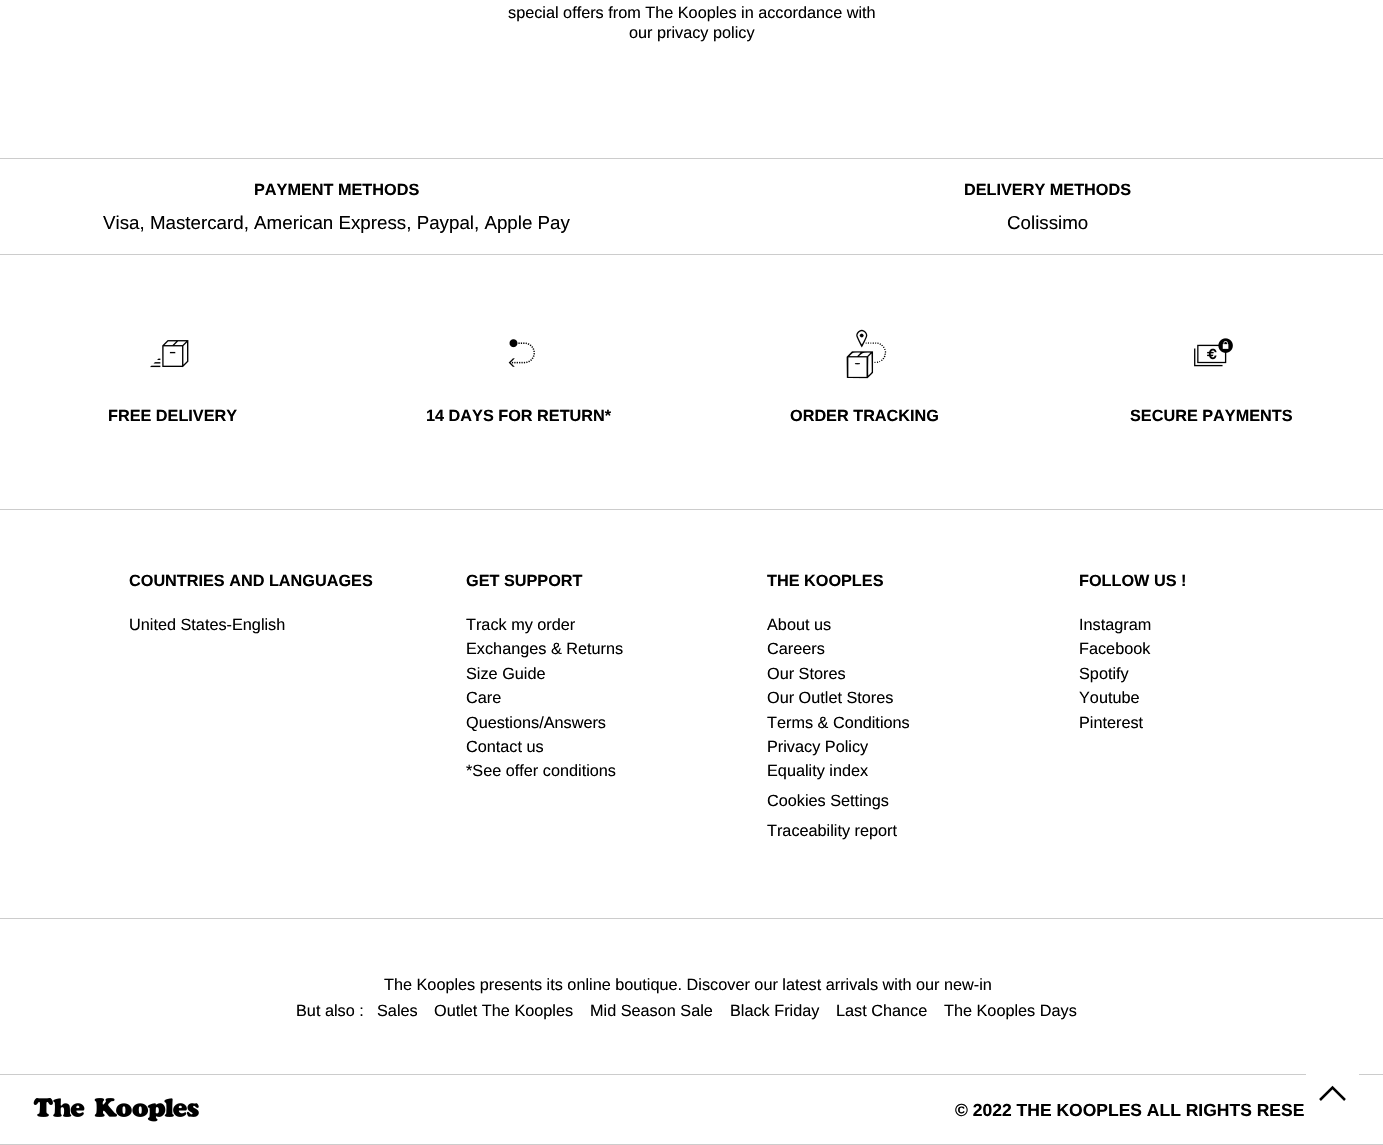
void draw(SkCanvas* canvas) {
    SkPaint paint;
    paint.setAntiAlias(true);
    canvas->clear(0xFFFFFFFF);
    SkFont font1(fontMgr->matchFamilyStyle("Liberation Sans", SkFontStyle::Normal()), 16.25f);
    font1.setSubpixel(true);
    paint.setColor(0xFF000000);
    canvas->drawString("special offers from The Kooples in accordance with", 508, 18, font1, paint);
    canvas->drawString("our privacy policy", 629, 38, font1, paint);
    paint.setColor(0xFFCCCCCC);
    canvas->drawRect(SkRect::MakeXYWH(0, 158, 1383, 1), paint);
    SkFont font2(fontMgr->matchFamilyStyle("Liberation Sans", SkFontStyle::Bold()), 16.25f);
    font2.setSubpixel(true);
    paint.setColor(0xFF000000);
    canvas->drawString("PAYMENT METHODS", 254, 195, font2, paint);
    SkFont font3(fontMgr->matchFamilyStyle("Liberation Sans", SkFontStyle::Normal()), 18.75f);
    font3.setSubpixel(true);
    canvas->drawString("Visa, Mastercard, American Express, Paypal, Apple Pay", 103, 229, font3, paint);
    canvas->drawString("DELIVERY METHODS", 964, 195, font2, paint);
    canvas->drawString("Colissimo", 1007, 229, font3, paint);
    paint.setColor(0xFFCCCCCC);
    canvas->drawRect(SkRect::MakeXYWH(0, 254, 1383, 1), paint);
    canvas->drawRect(SkRect::MakeXYWH(0, 509, 1383, 1), paint);
    canvas->drawImageRect(SkImages::DeferredFromEncodedData(SkData::MakeFromFileName("img1.png")), SkRect::MakeXYWH(150, 340, 39, 28), SkSamplingOptions());
    paint.setColor(0xFF000000);
    canvas->drawString("FREE DELIVERY", 108, 421, font2, paint);
    canvas->drawImageRect(SkImages::DeferredFromEncodedData(SkData::MakeFromFileName("img2.png")), SkRect::MakeXYWH(508, 339, 27, 28), SkSamplingOptions());
    canvas->drawString("14 DAYS FOR RETURN*", 426, 421, font2, paint);
    canvas->drawImageRect(SkImages::DeferredFromEncodedData(SkData::MakeFromFileName("img3.png")), SkRect::MakeXYWH(846, 329, 41, 50), SkSamplingOptions());
    canvas->drawString("ORDER TRACKING", 790, 421, font2, paint);
    canvas->drawImageRect(SkImages::DeferredFromEncodedData(SkData::MakeFromFileName("img4.png")), SkRect::MakeXYWH(1194, 338, 39, 29), SkSamplingOptions());
    canvas->drawString("SECURE PAYMENTS", 1130, 421, font2, paint);
    canvas->drawString("COUNTRIES AND LANGUAGES", 129, 586, font2, paint);
    canvas->drawString("United States-English", 129, 630, font1, paint);
    canvas->drawString("GET SUPPORT", 466, 586, font2, paint);
    canvas->drawString("Track my order", 466, 630, font1, paint);
    canvas->drawString("Exchanges & Returns", 466, 654, font1, paint);
    canvas->drawString("Size Guide", 466, 679, font1, paint);
    canvas->drawString("Care", 466, 703, font1, paint);
    canvas->drawString("Questions/Answers", 466, 728, font1, paint);
    canvas->drawString("Contact us", 466, 752, font1, paint);
    canvas->drawString("*See offer conditions", 466, 776, font1, paint);
    canvas->drawString("THE KOOPLES", 767, 586, font2, paint);
    canvas->drawString("About us", 767, 630, font1, paint);
    canvas->drawString("Careers", 767, 654, font1, paint);
    canvas->drawString("Our Stores", 767, 679, font1, paint);
    canvas->drawString("Our Outlet Stores", 767, 703, font1, paint);
    canvas->drawString("Terms & Conditions", 767, 728, font1, paint);
    canvas->drawString("Privacy Policy", 767, 752, font1, paint);
    canvas->drawString("Equality index", 767, 776, font1, paint);
    canvas->drawString("Cookies Settings", 767, 806, font1, paint);
    canvas->drawString("Traceability report", 767, 836, font1, paint);
    canvas->drawString("FOLLOW US !", 1079, 586, font2, paint);
    canvas->drawString("Instagram", 1079, 630, font1, paint);
    canvas->drawString("Facebook", 1079, 654, font1, paint);
    canvas->drawString("Spotify", 1079, 679, font1, paint);
    canvas->drawString("Youtube", 1079, 703, font1, paint);
    canvas->drawString("Pinterest", 1079, 728, font1, paint);
    paint.setColor(0xFFCCCCCC);
    canvas->drawRect(SkRect::MakeXYWH(0, 918, 1383, 1), paint);
    paint.setColor(0xFF000000);
    canvas->drawString("The Kooples presents its online boutique. Discover our latest arrivals with our new-in", 384, 990, font1, paint);
    canvas->drawString("But also :", 296, 1016, font1, paint);
    canvas->drawString("Sales", 377, 1016, font1, paint);
    canvas->drawString("Outlet The Kooples", 434, 1016, font1, paint);
    canvas->drawString("Mid Season Sale", 590, 1016, font1, paint);
    canvas->drawString("Black Friday", 730, 1016, font1, paint);
    canvas->drawString("Last Chance", 836, 1016, font1, paint);
    canvas->drawString("The Kooples Days", 944, 1016, font1, paint);
    paint.setColor(0xFFCCCCCC);
    canvas->drawRect(SkRect::MakeXYWH(0, 1074, 1383, 1), paint);
    canvas->drawRect(SkRect::MakeXYWH(0, 1144, 1383, 1), paint);
    canvas->drawImageRect(SkImages::DeferredFromEncodedData(SkData::MakeFromFileName("img5.png")), SkRect::MakeXYWH(33, 1098, 166, 24), SkSamplingOptions());
    SkFont font4(fontMgr->matchFamilyStyle("Liberation Sans", SkFontStyle::Bold()), 17.5f);
    font4.setSubpixel(true);
    paint.setColor(0xFF000000);
    canvas->drawString("© 2022 THE KOOPLES ALL RIGHTS RESE", 955, 1116, font4, paint);
    paint.setColor(0xFFFFFFFF);
    canvas->drawRect(SkRect::MakeXYWH(1306, 1074, 53, 1), paint);
    paint.setStyle(SkPaint::kStroke_Style);
    paint.setStrokeWidth(2.5f);
    paint.setColor(0xFF000000);
    canvas->drawPath(SkPathBuilder().moveTo(1320, 1100).lineTo(1332.5f, 1087.5f).lineTo(1345, 1100).detach(), paint);
}
